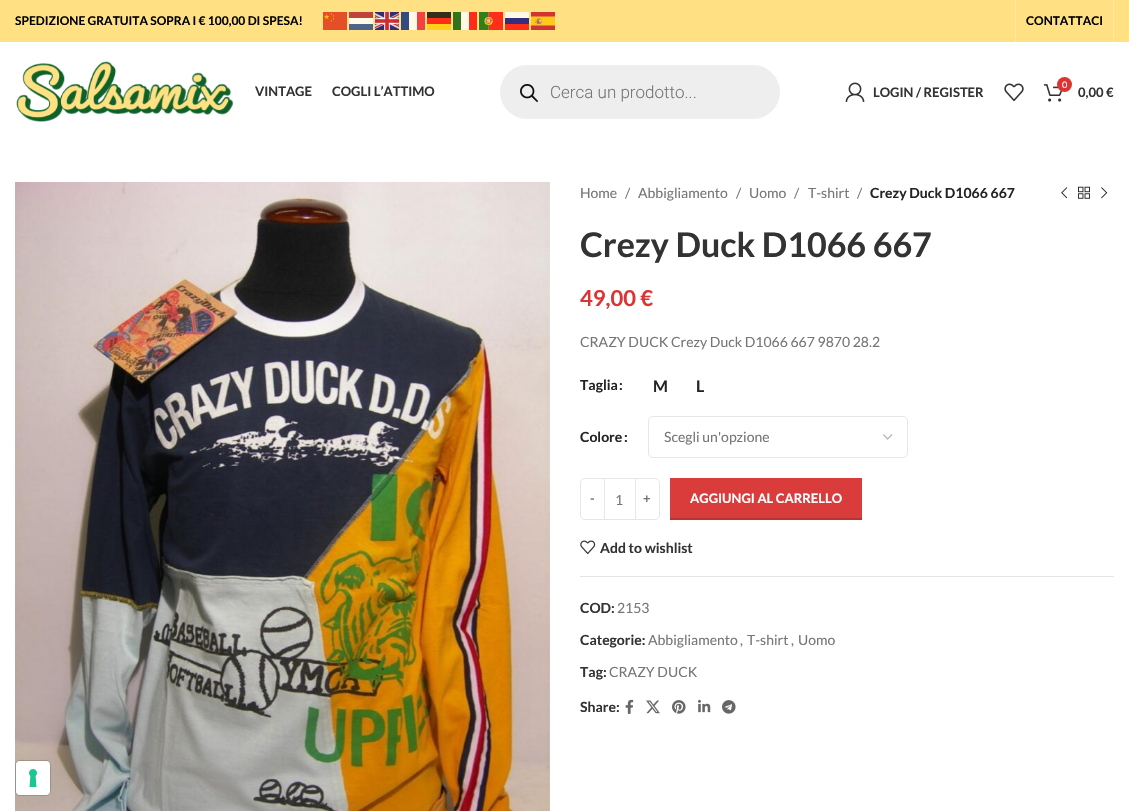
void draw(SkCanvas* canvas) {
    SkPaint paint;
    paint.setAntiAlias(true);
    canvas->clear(0xFFFFFFFF);
    paint.setColor(0xFFFFE184);
    canvas->drawRect(SkRect::MakeXYWH(0, 0, 1129, 42), paint);
    SkFont font1(fontMgr->matchFamilyStyle("Lato", SkFontStyle::Bold()), 12);
    font1.setSubpixel(true);
    paint.setColor(0xFF000000);
    canvas->drawString("SPEDIZIONE GRATUITA SOPRA I € 100,00 DI SPESA!", 15, 25, font1, paint);
    canvas->drawImageRect(SkImages::DeferredFromEncodedData(SkData::MakeFromFileName("img1.png")), SkRect::MakeXYWH(323, 12, 24, 18), SkSamplingOptions());
    paint.setColor(0xFFBE433A);
    canvas->drawRect(SkRect::MakeXYWH(349, 12, 24, 6), paint);
    canvas->drawImageRect(SkImages::DeferredFromEncodedData(SkData::MakeFromFileName("img2.png")), SkRect::MakeXYWH(375, 12, 24, 18), SkSamplingOptions());
    paint.setColor(0xFF334B80);
    canvas->drawRect(SkRect::MakeXYWH(401, 12, 8, 18), paint);
    paint.setColor(0xFFFFF9E6);
    canvas->drawRect(SkRect::MakeXYWH(409, 12, 8, 18), paint);
    paint.setColor(0xFFF54041);
    canvas->drawRect(SkRect::MakeXYWH(417, 12, 8, 18), paint);
    paint.setColor(0xFF332D1A);
    canvas->drawRect(SkRect::MakeXYWH(427, 12, 24, 6), paint);
    paint.setColor(0xFF33731A);
    canvas->drawRect(SkRect::MakeXYWH(453, 12, 8, 18), paint);
    paint.setColor(0xFFFFF9E6);
    canvas->drawRect(SkRect::MakeXYWH(461, 12, 8, 18), paint);
    paint.setColor(0xFFFD2D1A);
    canvas->drawRect(SkRect::MakeXYWH(469, 12, 8, 18), paint);
    canvas->drawImageRect(SkImages::DeferredFromEncodedData(SkData::MakeFromFileName("img3.png")), SkRect::MakeXYWH(479, 12, 24, 18), SkSamplingOptions());
    paint.setColor(0xFFFFF9E6);
    canvas->drawRect(SkRect::MakeXYWH(505, 12, 24, 6), paint);
    canvas->drawImageRect(SkImages::DeferredFromEncodedData(SkData::MakeFromFileName("img4.png")), SkRect::MakeXYWH(531, 12, 24, 18), SkSamplingOptions());
    canvas->drawRect(SkRect::MakeXYWH(349, 18, 24, 6), paint);
    paint.setColor(0xFFFF2D1A);
    canvas->drawRect(SkRect::MakeXYWH(427, 18, 24, 6), paint);
    paint.setColor(0xFF342E7F);
    canvas->drawRect(SkRect::MakeXYWH(505, 18, 24, 6), paint);
    paint.setColor(0xFF4D658A);
    canvas->drawRect(SkRect::MakeXYWH(349, 24, 24, 6), paint);
    paint.setColor(0xFFFFD01A);
    canvas->drawRect(SkRect::MakeXYWH(427, 24, 24, 6), paint);
    paint.setColor(0xFFFE2E1B);
    canvas->drawRect(SkRect::MakeXYWH(505, 24, 24, 6), paint);
    paint.setColor(0xFFFFE9A3);
    canvas->drawRect(SkRect::MakeXYWH(1015, 0, 1, 42), paint);
    paint.setColor(0xFF000000);
    canvas->drawString("CONTATTACI", 1026, 25, font1, paint);
    paint.setColor(0xFFFFE9A3);
    canvas->drawRect(SkRect::MakeXYWH(1113, 0, 1, 42), paint);
    canvas->drawImageRect(SkImages::DeferredFromEncodedData(SkData::MakeFromFileName("img5.png")), SkRect::MakeXYWH(16, 61, 218, 61), SkSamplingOptions());
    SkFont font2(fontMgr->matchFamilyStyle("Lato", SkFontStyle::Bold()), 13);
    font2.setSubpixel(true);
    paint.setColor(0xFF333333);
    canvas->drawString("VINTAGE", 255, 96, font2, paint);
    canvas->drawString("COGLI L’ATTIMO", 332, 96, font2, paint);
    paint.setColor(0xFFEEEEEE);
    canvas->drawRoundRect(SkRect::MakeXYWH(500, 65, 280, 54), 27, 27, paint);
    canvas->drawImageRect(SkImages::DeferredFromEncodedData(SkData::MakeFromFileName("img6.png")), SkRect::MakeXYWH(520, 84, 18, 18), SkSamplingOptions());
    SkFont font3(fontMgr->matchFamilyStyle("Roboto", SkFontStyle(300, SkFontStyle::kNormal_Width, SkFontStyle::kUpright_Slant)), 17);
    font3.setSubpixel(true);
    paint.setColor(0xFF767676);
    canvas->drawString("Cerca un prodotto...", 550, 98, font3, paint);
    canvas->drawImageRect(SkImages::DeferredFromEncodedData(SkData::MakeFromFileName("img7.png")), SkRect::MakeXYWH(845, 82, 20, 20), SkSamplingOptions());
    paint.setColor(0xFF333333);
    canvas->drawString("LOGIN / REGISTER", 873, 97, font2, paint);
    canvas->drawImageRect(SkImages::DeferredFromEncodedData(SkData::MakeFromFileName("img8.png")), SkRect::MakeXYWH(1004, 83, 20, 18), SkSamplingOptions());
    canvas->drawImageRect(SkImages::DeferredFromEncodedData(SkData::MakeFromFileName("img9.png")), SkRect::MakeXYWH(1044, 84, 19, 18), SkSamplingOptions());
    paint.setColor(0xFFDD3333);
    canvas->drawCircle(1064.5f, 84.5f, 7.5f, paint);
    SkFont font4(fontMgr->matchFamilyStyle("Lato", SkFontStyle::Normal()), 9);
    font4.setSubpixel(true);
    paint.setColor(0xFFFFFFFF);
    canvas->drawString("0", 1062, 88, font4, paint);
    paint.setColor(0xFF333333);
    canvas->drawString("0,00 €", 1078, 97, font2, paint);
    canvas->drawImageRect(SkImages::DeferredFromEncodedData(SkData::MakeFromFileName("img10.png")), SkRect::MakeXYWH(15, 182, 535, 629), SkSamplingOptions());
    SkFont font5(fontMgr->matchFamilyStyle("Lato", SkFontStyle::Normal()), 14);
    font5.setSubpixel(true);
    paint.setColor(0xFF767676);
    canvas->drawString("Home", 580, 198, font5, paint);
    canvas->drawString("/", 625, 198, font5, paint);
    canvas->drawString("Abbigliamento", 638, 198, font5, paint);
    canvas->drawString("/", 736, 198, font5, paint);
    canvas->drawString("Uomo", 749, 198, font5, paint);
    canvas->drawString("/", 794, 198, font5, paint);
    canvas->drawString("T-shirt", 808, 198, font5, paint);
    canvas->drawString("/", 857, 198, font5, paint);
    SkFont font6(fontMgr->matchFamilyStyle("Lato", SkFontStyle::Bold()), 14);
    font6.setSubpixel(true);
    paint.setColor(0xFF242424);
    canvas->drawString("Crezy Duck D1066 667", 870, 198, font6, paint);
    canvas->drawImageRect(SkImages::DeferredFromEncodedData(SkData::MakeFromFileName("img11.png")), SkRect::MakeXYWH(1061, 187, 7, 12), SkSamplingOptions());
    canvas->drawImageRect(SkImages::DeferredFromEncodedData(SkData::MakeFromFileName("img12.png")), SkRect::MakeXYWH(1078, 186, 12, 13), SkSamplingOptions());
    canvas->drawImageRect(SkImages::DeferredFromEncodedData(SkData::MakeFromFileName("img13.png")), SkRect::MakeXYWH(1101, 187, 7, 12), SkSamplingOptions());
    SkFont font7(fontMgr->matchFamilyStyle("Lato", SkFontStyle::Bold()), 34);
    font7.setSubpixel(true);
    paint.setColor(0xFF333333);
    canvas->drawString("Crezy Duck D1066 667", 580, 257, font7, paint);
    SkFont font8(fontMgr->matchFamilyStyle("Lato", SkFontStyle::Bold()), 22);
    font8.setSubpixel(true);
    paint.setColor(0xFFDD3333);
    canvas->drawString("49,00 €", 580, 306, font8, paint);
    paint.setColor(0xFF767676);
    canvas->drawString("CRAZY DUCK Crezy Duck D1066 667 9870 28.2", 580, 347, font5, paint);
    paint.setColor(0xFF242424);
    canvas->drawString("Taglia", 580, 390, font6, paint);
    canvas->drawString(":", 619, 390, font6, paint);
    SkFont font9(fontMgr->matchFamilyStyle("Lato", SkFontStyle::Bold()), 16);
    font9.setSubpixel(true);
    canvas->drawString("M", 653, 392, font9, paint);
    canvas->drawString("L", 696, 392, font9, paint);
    canvas->drawString("Colore", 580, 442, font6, paint);
    canvas->drawString(":", 624, 442, font6, paint);
    paint.setStyle(SkPaint::kStroke_Style);
    paint.setStrokeWidth(1.4f);
    paint.setColor(0xFFBBBBBB);
    canvas->drawPath(SkPathBuilder().moveTo(883.5f, 434.5f).lineTo(887.5f, 439).lineTo(892, 434.5f).detach(), paint);
    paint.setStrokeWidth(1);
    paint.setColor(0xFFE6E6E6);
    canvas->drawRoundRect(SkRect::MakeXYWH(648.5f, 416.5f, 259, 41), 4.5f, 4.5f, paint);
    paint.setStyle(SkPaint::kFill_Style);
    paint.setColor(0xFF767676);
    canvas->drawString("Scegli un'opzione", 664, 442, font5, paint);
    paint.setStyle(SkPaint::kStroke_Style);
    paint.setColor(0xFFE6E6E6);
    canvas->drawPath(SkPathBuilder().moveTo(585, 478.5f).lineTo(604.5f, 478.5f).lineTo(604.5f, 519.5f).lineTo(585, 519.5f).cubicTo(582.5f, 519.5f, 580.5f, 517.5f, 580.5f, 515).lineTo(580.5f, 483).cubicTo(580.5f, 480.5f, 582.5f, 478.5f, 585, 478.5f).close().detach(), paint);
    paint.setStyle(SkPaint::kFill_Style);
    paint.setColor(0xFF767676);
    canvas->drawString("-", 590, 503, font2, paint);
    paint.setColor(0xFFE6E6E6);
    canvas->drawRect(SkRect::MakeXYWH(605, 478, 30, 1), paint);
    canvas->drawRect(SkRect::MakeXYWH(605, 519, 30, 1), paint);
    paint.setColor(0xFF767676);
    canvas->drawString("1", 615, 505, font5, paint);
    paint.setStyle(SkPaint::kStroke_Style);
    paint.setColor(0xFFE6E6E6);
    canvas->drawPath(SkPathBuilder().moveTo(635.5f, 478.5f).lineTo(655, 478.5f).cubicTo(657.5f, 478.5f, 659.5f, 480.5f, 659.5f, 483).lineTo(659.5f, 515).cubicTo(659.5f, 517.5f, 657.5f, 519.5f, 655, 519.5f).lineTo(635.5f, 519.5f).close().detach(), paint);
    paint.setStyle(SkPaint::kFill_Style);
    paint.setColor(0xFF767676);
    canvas->drawString("+", 643, 503, font2, paint);
    paint.setColor(0xFFDA3C3C);
    canvas->drawRect(SkRect::MakeXYWH(670, 478, 192, 40), paint);
    paint.setColor(0xFFB93333);
    canvas->drawRect(SkRect::MakeXYWH(670, 518, 192, 2), paint);
    paint.setColor(0xFFFFFFFF);
    canvas->drawString("AGGIUNGI AL CARRELLO", 690, 503, font2, paint);
    canvas->drawImageRect(SkImages::DeferredFromEncodedData(SkData::MakeFromFileName("img14.png")), SkRect::MakeXYWH(580, 540, 16, 14), SkSamplingOptions());
    paint.setColor(0xFF333333);
    canvas->drawString("Add to wishlist", 600, 553, font6, paint);
    paint.setColor(0xFFE4E4E4);
    canvas->drawRect(SkRect::MakeXYWH(580, 576, 534, 1), paint);
    paint.setColor(0xFF333333);
    canvas->drawString("COD:", 580, 613, font6, paint);
    paint.setColor(0xFF767676);
    canvas->drawString("2153", 617, 613, font5, paint);
    paint.setColor(0xFF333333);
    canvas->drawString("Categorie:", 580, 645, font6, paint);
    paint.setColor(0xFF767676);
    canvas->drawString("Abbigliamento", 648, 645, font5, paint);
    canvas->drawString(",", 740, 645, font5, paint);
    canvas->drawString("T-shirt", 747, 645, font5, paint);
    canvas->drawString(",", 791, 645, font5, paint);
    canvas->drawString("Uomo", 798, 645, font5, paint);
    paint.setColor(0xFF333333);
    canvas->drawString("Tag:", 580, 677, font6, paint);
    paint.setColor(0xFF767676);
    canvas->drawString("CRAZY DUCK", 609, 677, font5, paint);
    paint.setColor(0xFF333333);
    canvas->drawString("Share:", 580, 712, font6, paint);
    canvas->drawImageRect(SkImages::DeferredFromEncodedData(SkData::MakeFromFileName("img15.png")), SkRect::MakeXYWH(625, 699, 9, 15), SkSamplingOptions());
    canvas->drawImageRect(SkImages::DeferredFromEncodedData(SkData::MakeFromFileName("img16.png")), SkRect::MakeXYWH(646, 700, 14, 14), SkSamplingOptions());
    canvas->drawImageRect(SkImages::DeferredFromEncodedData(SkData::MakeFromFileName("img17.png")), SkRect::MakeXYWH(672, 700, 14, 14), SkSamplingOptions());
    canvas->drawImageRect(SkImages::DeferredFromEncodedData(SkData::MakeFromFileName("img18.png")), SkRect::MakeXYWH(698, 699, 13, 14), SkSamplingOptions());
    canvas->drawImageRect(SkImages::DeferredFromEncodedData(SkData::MakeFromFileName("img19.png")), SkRect::MakeXYWH(722, 700, 14, 14), SkSamplingOptions());
    paint.setStyle(SkPaint::kStroke_Style);
    paint.setColor(0x26000000);
    canvas->drawRoundRect(SkRect::MakeXYWH(15.5f, 760.5f, 35, 35), 4.5f, 4.5f, paint);
    paint.setStyle(SkPaint::kFill_Style);
    paint.setColor(0xFFFFFFFF);
    canvas->drawRoundRect(SkRect::MakeXYWH(16, 761, 34, 34), 4, 4, paint);
    canvas->drawImageRect(SkImages::DeferredFromEncodedData(SkData::MakeFromFileName("img20.png")), SkRect::MakeXYWH(29, 769, 8, 18), SkSamplingOptions());
}
